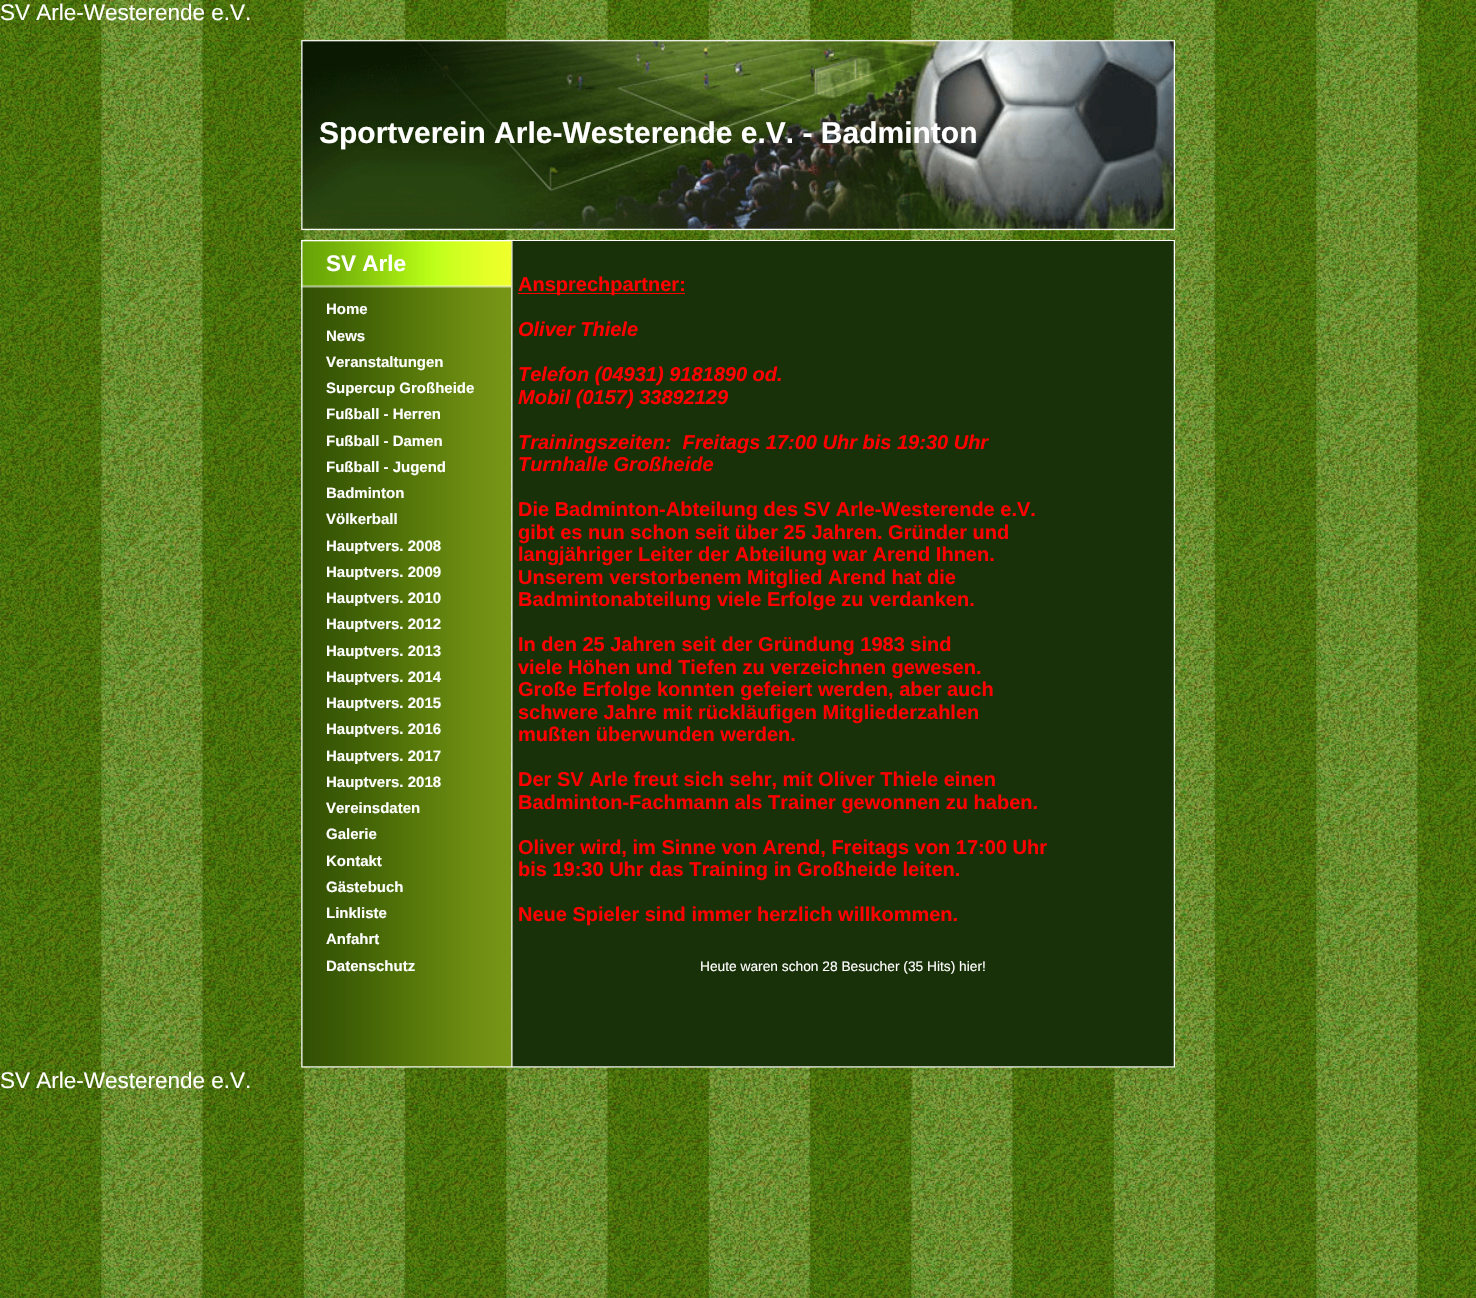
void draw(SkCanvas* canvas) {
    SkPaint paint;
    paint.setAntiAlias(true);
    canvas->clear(0xFFFFFFFF);
    canvas->drawImageRect(SkImages::DeferredFromEncodedData(SkData::MakeFromFileName("img1.png")), SkRect::MakeXYWH(0, 0, 1476, 1298), SkSamplingOptions());
    SkFont font1(fontMgr->matchFamilyStyle("Liberation Sans", SkFontStyle::Normal()), 22.5f);
    font1.setSubpixel(true);
    paint.setColor(0xFFFFFFFF);
    canvas->drawString("SV Arle-Westerende e.V.", 0, 20, font1, paint);
    canvas->drawImageRect(SkImages::DeferredFromEncodedData(SkData::MakeFromFileName("img2.png")), SkRect::MakeXYWH(301, 39, 874, 192), SkSamplingOptions());
    SkFont font2(fontMgr->matchFamilyStyle("Liberation Sans", SkFontStyle::Bold()), 30);
    font2.setSubpixel(true);
    canvas->drawString("Sportverein Arle-Westerende e.V. - Badminton", 319, 143, font2, paint);
    canvas->drawImageRect(SkImages::DeferredFromEncodedData(SkData::MakeFromFileName("img3.png")), SkRect::MakeXYWH(301, 240, 211, 810), SkSamplingOptions());
    canvas->drawImageRect(SkImages::DeferredFromEncodedData(SkData::MakeFromFileName("img5.png")), SkRect::MakeXYWH(511, 241, 664, 809), SkSamplingOptions());
    canvas->drawRect(SkRect::MakeXYWH(511, 240, 664, 1), paint);
    canvas->drawImageRect(SkImages::DeferredFromEncodedData(SkData::MakeFromFileName("img4.png")), SkRect::MakeXYWH(301, 240, 211, 48), SkSamplingOptions());
    SkFont font3(fontMgr->matchFamilyStyle("Liberation Sans", SkFontStyle::Bold()), 22.5f);
    font3.setSubpixel(true);
    canvas->drawString("SV Arle", 326, 271, font3, paint);
    SkFont font4(fontMgr->matchFamilyStyle("Liberation Sans", SkFontStyle::Bold()), 15);
    font4.setSubpixel(true);
    canvas->drawString("Home", 326, 314, font4, paint);
    canvas->drawString("News", 326, 341, font4, paint);
    canvas->drawString("Veranstaltungen", 326, 367, font4, paint);
    canvas->drawString("Supercup Großheide", 326, 393, font4, paint);
    canvas->drawString("Fußball - Herren", 326, 419, font4, paint);
    canvas->drawString("Fußball - Damen", 326, 446, font4, paint);
    canvas->drawString("Fußball - Jugend", 326, 472, font4, paint);
    canvas->drawString("Badminton", 326, 498, font4, paint);
    canvas->drawString("Völkerball", 326, 524, font4, paint);
    canvas->drawString("Hauptvers. 2008", 326, 551, font4, paint);
    canvas->drawString("Hauptvers. 2009", 326, 577, font4, paint);
    canvas->drawString("Hauptvers. 2010", 326, 603, font4, paint);
    canvas->drawString("Hauptvers. 2012", 326, 629, font4, paint);
    canvas->drawString("Hauptvers. 2013", 326, 656, font4, paint);
    canvas->drawString("Hauptvers. 2014", 326, 682, font4, paint);
    canvas->drawString("Hauptvers. 2015", 326, 708, font4, paint);
    canvas->drawString("Hauptvers. 2016", 326, 734, font4, paint);
    canvas->drawString("Hauptvers. 2017", 326, 761, font4, paint);
    canvas->drawString("Hauptvers. 2018", 326, 787, font4, paint);
    canvas->drawString("Vereinsdaten", 326, 813, font4, paint);
    canvas->drawString("Galerie", 326, 839, font4, paint);
    canvas->drawString("Kontakt", 326, 866, font4, paint);
    canvas->drawString("Gästebuch", 326, 892, font4, paint);
    canvas->drawString("Linkliste", 326, 918, font4, paint);
    canvas->drawString("Anfahrt", 326, 944, font4, paint);
    canvas->drawString("Datenschutz", 326, 971, font4, paint);
    paint.setColor(0xFFFF0000);
    canvas->drawRect(SkRect::MakeXYWH(518, 293, 167, 1), paint);
    SkFont font5(fontMgr->matchFamilyStyle("Liberation Sans", SkFontStyle::Bold()), 20);
    font5.setSubpixel(true);
    canvas->drawString("Ansprechpartner:", 518, 291, font5, paint);
    SkFont font6(fontMgr->matchFamilyStyle("Liberation Sans", SkFontStyle::BoldItalic()), 20);
    font6.setSubpixel(true);
    canvas->drawString("Oliver Thiele", 518, 336, font6, paint);
    canvas->drawString("Telefon (04931) 9181890 od.", 518, 381, font6, paint);
    canvas->drawString("Mobil (0157) 33892129", 518, 404, font6, paint);
    canvas->drawString("Trainingszeiten:  Freitags 17:00 Uhr bis 19:30 Uhr", 518, 449, font6, paint);
    canvas->drawString("Turnhalle Großheide", 518, 471, font6, paint);
    canvas->drawString("Die Badminton-Abteilung des SV Arle-Westerende e.V.", 518, 516, font5, paint);
    canvas->drawString("gibt es nun schon seit über 25 Jahren. Gründer und", 518, 539, font5, paint);
    canvas->drawString("langjähriger Leiter der Abteilung war Arend Ihnen.", 518, 561, font5, paint);
    canvas->drawString("Unserem verstorbenem Mitglied Arend hat die", 518, 584, font5, paint);
    canvas->drawString("Badmintonabteilung viele Erfolge zu verdanken.", 518, 606, font5, paint);
    canvas->drawString("In den 25 Jahren seit der Gründung 1983 sind", 518, 651, font5, paint);
    canvas->drawString("viele Höhen und Tiefen zu verzeichnen gewesen.", 518, 674, font5, paint);
    canvas->drawString("Große Erfolge konnten gefeiert werden, aber auch", 518, 696, font5, paint);
    canvas->drawString("schwere Jahre mit rückläufigen Mitgliederzahlen", 518, 719, font5, paint);
    canvas->drawString("mußten überwunden werden.", 518, 741, font5, paint);
    canvas->drawString("Der SV Arle freut sich sehr, mit Oliver Thiele einen", 518, 786, font5, paint);
    canvas->drawString("Badminton-Fachmann als Trainer gewonnen zu haben.", 518, 809, font5, paint);
    canvas->drawString("Oliver wird, im Sinne von Arend, Freitags von 17:00 Uhr", 518, 854, font5, paint);
    canvas->drawString("bis 19:30 Uhr das Training in Großheide leiten.", 518, 876, font5, paint);
    canvas->drawString("Neue Spieler sind immer herzlich willkommen.", 518, 921, font5, paint);
    SkFont font7(fontMgr->matchFamilyStyle("Liberation Sans", SkFontStyle::Normal()), 13.75f);
    font7.setSubpixel(true);
    paint.setColor(0xFFFFFFFF);
    canvas->drawString("Heute waren schon 28 Besucher (35 Hits) hier!", 700, 971, font7, paint);
    canvas->drawImageRect(SkImages::DeferredFromEncodedData(SkData::MakeFromFileName("img6.png")), SkRect::MakeXYWH(301, 1050, 874, 18), SkSamplingOptions());
    canvas->drawString("SV Arle-Westerende e.V.", 0, 1088, font1, paint);
}
